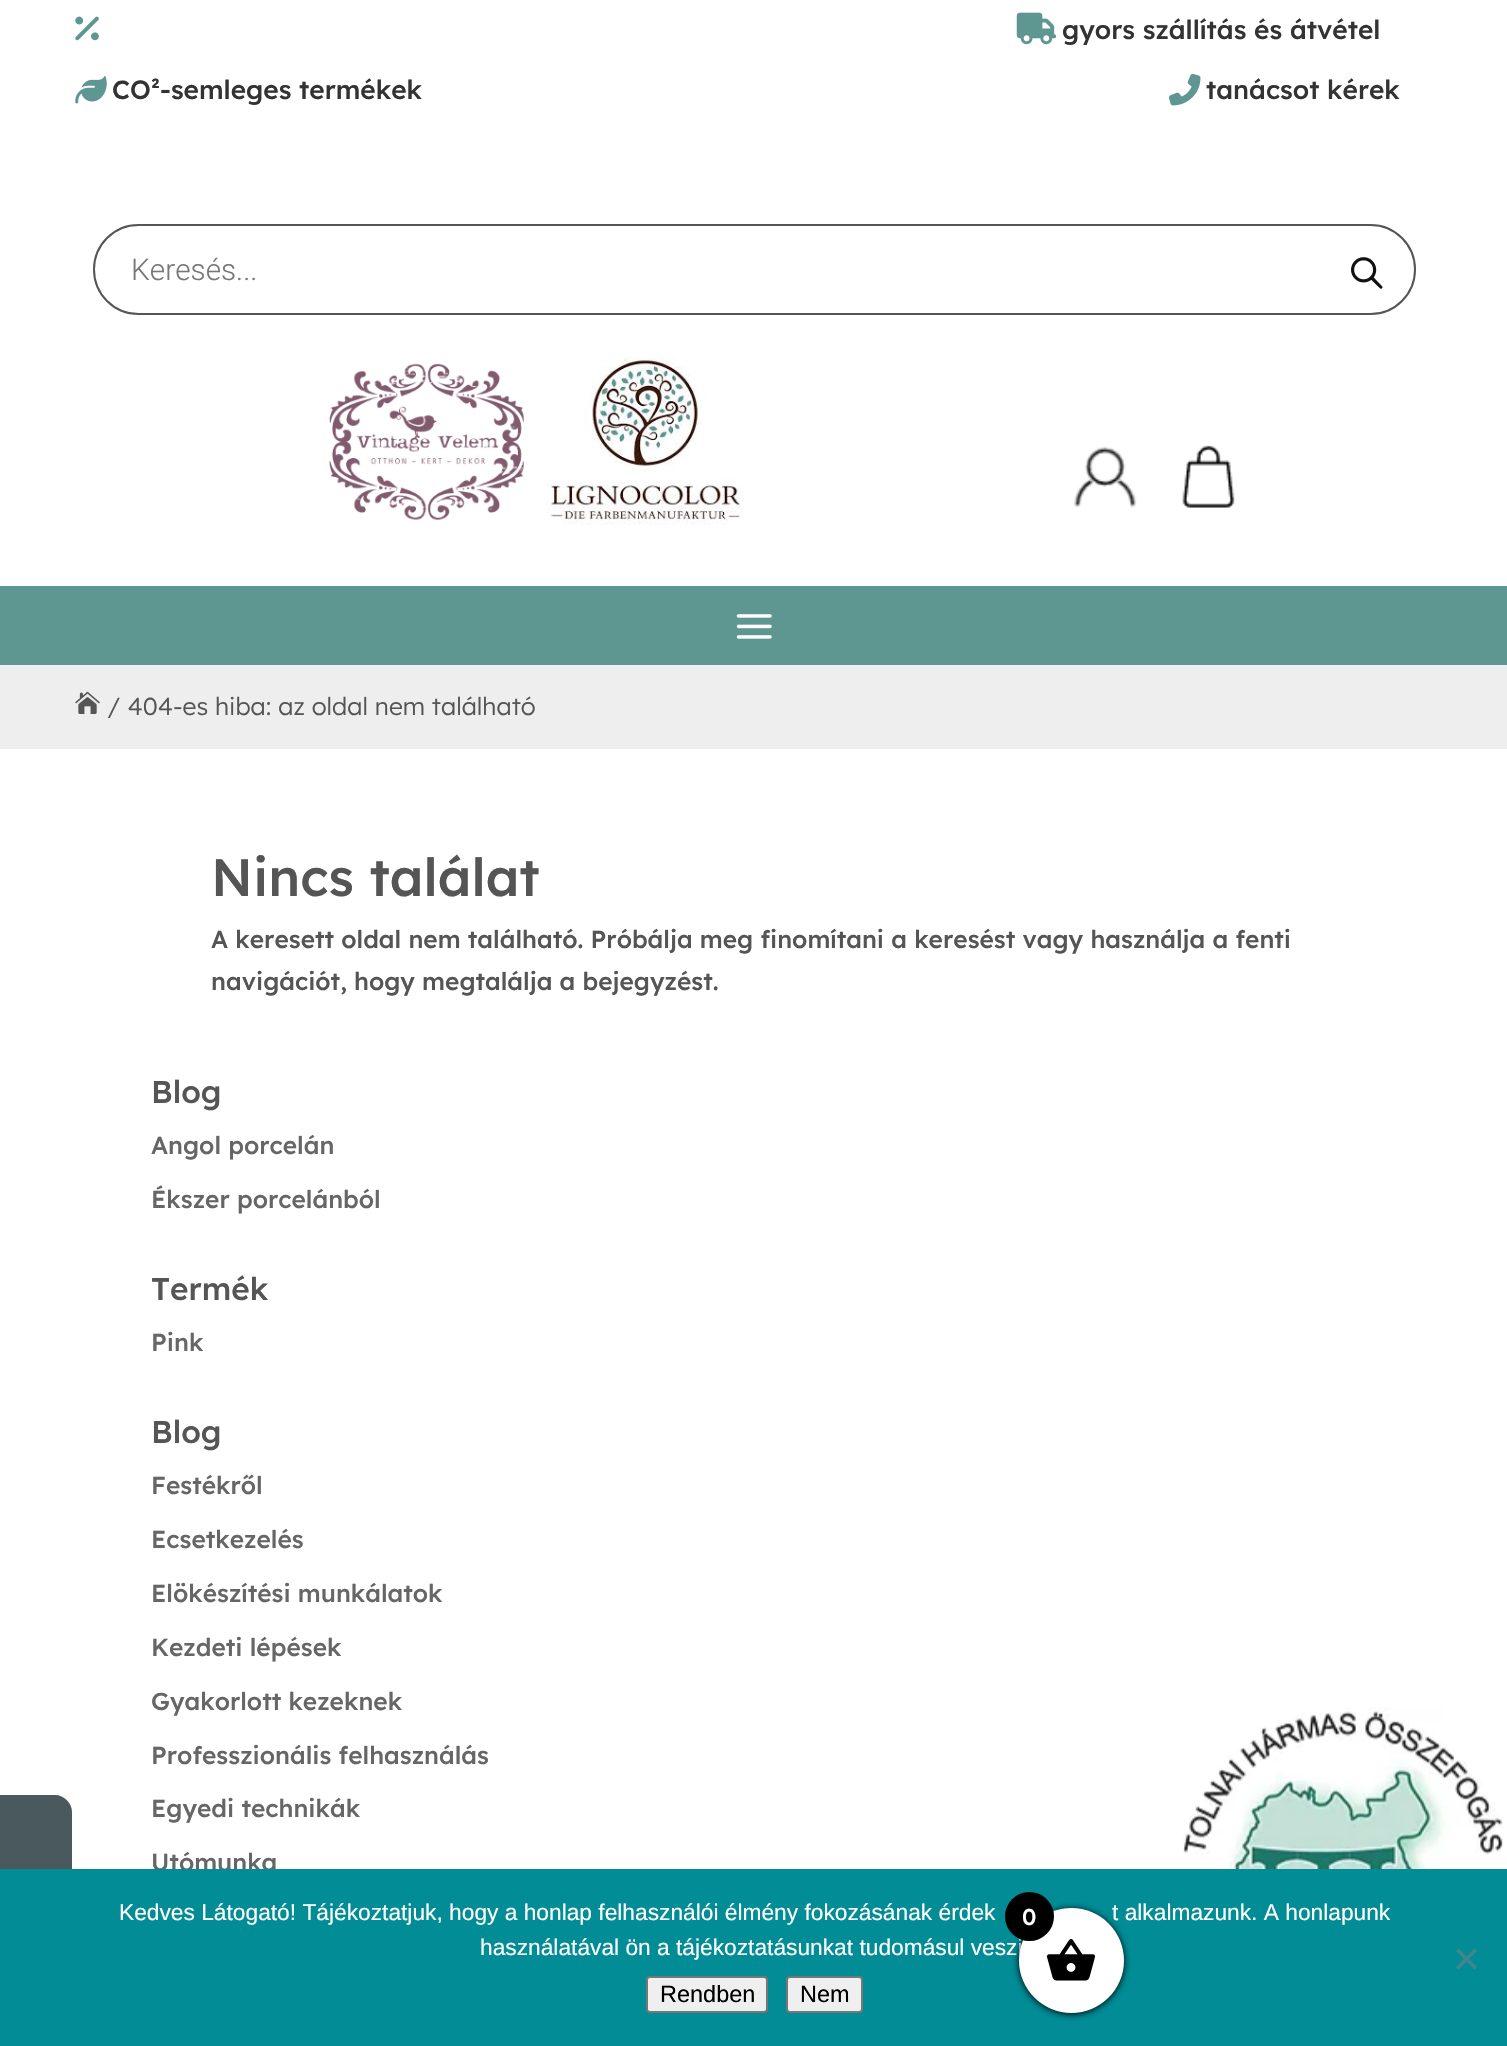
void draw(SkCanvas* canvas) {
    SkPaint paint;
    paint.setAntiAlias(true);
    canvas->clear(0xFFFFFFFF);
    canvas->drawImageRect(SkImages::DeferredFromEncodedData(SkData::MakeFromFileName("img1.png")), SkRect::MakeXYWH(75, 16, 24, 25), SkSamplingOptions());
    canvas->drawImageRect(SkImages::DeferredFromEncodedData(SkData::MakeFromFileName("img2.png")), SkRect::MakeXYWH(1016, 12, 41, 33), SkSamplingOptions());
    SkFont font1(fontMgr->matchFamilyStyle("Lexend", SkFontStyle(500, SkFontStyle::kNormal_Width, SkFontStyle::kUpright_Slant)), 26.25f);
    font1.setSubpixel(true);
    paint.setColor(0xFF333333);
    canvas->drawString("gyors szállítás és átvétel", 1062, 39, font1, paint);
    canvas->drawImageRect(SkImages::DeferredFromEncodedData(SkData::MakeFromFileName("img3.png")), SkRect::MakeXYWH(75, 76, 32, 28), SkSamplingOptions());
    canvas->drawString("CO²-semleges termékek", 112, 99, font1, paint);
    canvas->drawImageRect(SkImages::DeferredFromEncodedData(SkData::MakeFromFileName("img4.png")), SkRect::MakeXYWH(1169, 74, 32, 32), SkSamplingOptions());
    canvas->drawString("tanácsot kérek", 1206, 99, font1, paint);
    paint.setStyle(SkPaint::kStroke_Style);
    paint.setStrokeWidth(2);
    paint.setColor(0xFF555555);
    canvas->drawRoundRect(SkRect::MakeXYWH(94, 225, 1321, 89), 44.5f, 44.5f, paint);
    SkFont font2(fontMgr->matchFamilyStyle("Roboto", SkFontStyle(300, SkFontStyle::kNormal_Width, SkFontStyle::kUpright_Slant)), 29.75f);
    font2.setSubpixel(true);
    paint.setStyle(SkPaint::kFill_Style);
    paint.setColor(0xFF777777);
    canvas->drawString("Keresés...", 131, 280, font2, paint);
    canvas->drawImageRect(SkImages::DeferredFromEncodedData(SkData::MakeFromFileName("img5.png")), SkRect::MakeXYWH(1351, 257, 32, 32), SkSamplingOptions());
    canvas->drawImageRect(SkImages::DeferredFromEncodedData(SkData::MakeFromFileName("img6.png")), SkRect::MakeXYWH(329, 355, 414, 170), SkSamplingOptions());
    canvas->drawImageRect(SkImages::DeferredFromEncodedData(SkData::MakeFromFileName("img7.png")), SkRect::MakeXYWH(1074, 446, 63, 62), SkSamplingOptions());
    canvas->drawImageRect(SkImages::DeferredFromEncodedData(SkData::MakeFromFileName("img8.png")), SkRect::MakeXYWH(1182, 445, 53, 63), SkSamplingOptions());
    paint.setColor(0xFF5E9791);
    canvas->drawRect(SkRect::MakeXYWH(0, 586, 1507, 79), paint);
    canvas->drawImageRect(SkImages::DeferredFromEncodedData(SkData::MakeFromFileName("img9.png")), SkRect::MakeXYWH(736, 614, 36, 25), SkSamplingOptions());
    paint.setColor(0xFFEEEEEE);
    canvas->drawRect(SkRect::MakeXYWH(0, 665, 1507, 84), paint);
    canvas->drawImageRect(SkImages::DeferredFromEncodedData(SkData::MakeFromFileName("img10.png")), SkRect::MakeXYWH(75, 691, 25, 23), SkSamplingOptions());
    SkFont font3(fontMgr->matchFamilyStyle("Lexend", SkFontStyle(300, SkFontStyle::kNormal_Width, SkFontStyle::kUpright_Slant)), 24.5f);
    font3.setSubpixel(true);
    paint.setColor(0xFF555555);
    canvas->drawString("/ 404-es hiba: az oldal nem található", 107, 715, font3, paint);
    SkFont font4(fontMgr->matchFamilyStyle("Lexend", SkFontStyle(500, SkFontStyle::kNormal_Width, SkFontStyle::kUpright_Slant)), 52.5f);
    font4.setSubpixel(true);
    canvas->drawString("Nincs találat", 211, 896, font4, paint);
    SkFont font5(fontMgr->matchFamilyStyle("Lexend", SkFontStyle(500, SkFontStyle::kNormal_Width, SkFontStyle::kUpright_Slant)), 24.5f);
    font5.setSubpixel(true);
    canvas->drawString("A keresett oldal nem található. Próbálja meg finomítani a keresést vagy használja a fenti", 211, 948, font5, paint);
    canvas->drawString("navigációt, hogy megtalálja a bejegyzést.", 211, 990, font5, paint);
    SkFont font6(fontMgr->matchFamilyStyle("Lexend", SkFontStyle(500, SkFontStyle::kNormal_Width, SkFontStyle::kUpright_Slant)), 31.5f);
    font6.setSubpixel(true);
    canvas->drawString("Blog", 151, 1103, font6, paint);
    paint.setColor(0xFF666666);
    canvas->drawString("Angol porcelán", 151, 1154, font5, paint);
    canvas->drawString("Ékszer porcelánból", 151, 1208, font5, paint);
    paint.setColor(0xFF555555);
    canvas->drawString("Termék", 151, 1300, font6, paint);
    paint.setColor(0xFF666666);
    canvas->drawString("Pink", 151, 1351, font5, paint);
    paint.setColor(0xFF555555);
    canvas->drawString("Blog", 151, 1443, font6, paint);
    paint.setColor(0xFF666666);
    canvas->drawString("Festékről", 151, 1494, font5, paint);
    canvas->drawString("Ecsetkezelés", 151, 1548, font5, paint);
    canvas->drawString("Elökészítési munkálatok", 151, 1602, font5, paint);
    canvas->drawString("Kezdeti lépések", 151, 1656, font5, paint);
    canvas->drawString("Gyakorlott kezeknek", 151, 1710, font5, paint);
    canvas->drawString("Professzionális felhasználás", 151, 1764, font5, paint);
    canvas->drawString("Egyedi technikák", 151, 1817, font5, paint);
    canvas->drawString("Utómunka", 151, 1871, font5, paint);
    paint.setColor(0xFF49595D);
    canvas->drawPath(SkPathBuilder().moveTo(-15, 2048).lineTo(-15, 1795).lineTo(55, 1795).cubicTo(64, 1795, 72, 1803, 72, 1812).lineTo(72, 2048).close().detach(), paint);
    canvas->drawImageRect(SkImages::DeferredFromEncodedData(SkData::MakeFromFileName("img11.png")), SkRect::MakeXYWH(1182, 1707, 321, 162), SkSamplingOptions());
    paint.setColor(0xFF018C96);
    canvas->drawRect(SkRect::MakeXYWH(0, 1869, 1507, 177), paint);
    SkFont font7(fontMgr->matchFamilyStyle("Liberation Sans", SkFontStyle::Normal()), 22.75f);
    font7.setSubpixel(true);
    paint.setColor(0xFFFFFFFF);
    canvas->drawString("Kedves Látogató! Tájékoztatjuk, hogy a honlap felhasználói élmény fokozásának érdek", 119, 1920, font7, paint);
    canvas->drawString("t alkalmazunk. A honlapunk", 1112, 1920, font7, paint);
    canvas->drawString("használatával ön a tájékoztatásunkat tudomásul veszi", 480, 1955, font7, paint);
    paint.setColor(0xFF41868B);
    canvas->drawPath(SkPathBuilder().moveTo(1474.5f, 1948.5f).lineTo(1477, 1951).lineTo(1458.5f, 1969.5f).lineTo(1456, 1967).close().detach(), paint);
    canvas->drawPath(SkPathBuilder().moveTo(1456, 1951).lineTo(1458.5f, 1948.5f).lineTo(1477, 1967).lineTo(1474.5f, 1969.5f).close().detach(), paint);
    paint.setColor(0xFFEFEFEF);
    canvas->drawRoundRect(SkRect::MakeXYWH(647, 1977, 120, 35), 3, 3, paint);
    paint.setStyle(SkPaint::kStroke_Style);
    paint.setColor(0xFF767676);
    canvas->drawRoundRect(SkRect::MakeXYWH(647, 1977, 120, 35), 3, 3, paint);
    SkFont font8(fontMgr->matchFamilyStyle("Liberation Sans", SkFontStyle::Normal()), 23.5f);
    font8.setSubpixel(true);
    paint.setStyle(SkPaint::kFill_Style);
    paint.setColor(0xFF000000);
    canvas->drawString("Rendben", 660, 2002, font8, paint);
    paint.setColor(0xFFEFEFEF);
    canvas->drawRoundRect(SkRect::MakeXYWH(787, 1977, 75, 35), 3, 3, paint);
    paint.setStyle(SkPaint::kStroke_Style);
    paint.setColor(0xFF767676);
    canvas->drawRoundRect(SkRect::MakeXYWH(787, 1977, 75, 35), 3, 3, paint);
    paint.setStyle(SkPaint::kFill_Style);
    paint.setColor(0xFF000000);
    canvas->drawString("Nem", 800, 2002, font8, paint);
    paint.setMaskFilter(SkMaskFilter::MakeBlur(kNormal_SkBlurStyle, 3.5f));
    canvas->drawRoundRect(SkRect::MakeXYWH(1019, 1909, 105, 105), 52.5f, 52.5f, paint);
    paint.setMaskFilter(nullptr);
    paint.setColor(0xFFFFFFFF);
    canvas->drawCircle(1071.5f, 1960.5f, 52.5f, paint);
    canvas->drawImageRect(SkImages::DeferredFromEncodedData(SkData::MakeFromFileName("img12.png")), SkRect::MakeXYWH(1046, 1939, 50, 42), SkSamplingOptions());
    paint.setColor(0xFF000000);
    canvas->drawCircle(1029.5f, 1916.5f, 24.5f, paint);
    SkFont font9(fontMgr->matchFamilyStyle("Lexend", SkFontStyle(500, SkFontStyle::kNormal_Width, SkFontStyle::kUpright_Slant)), 22.75f);
    font9.setSubpixel(true);
    paint.setColor(0xFFFFFFFF);
    canvas->drawString("0", 1022, 1925, font9, paint);
}
